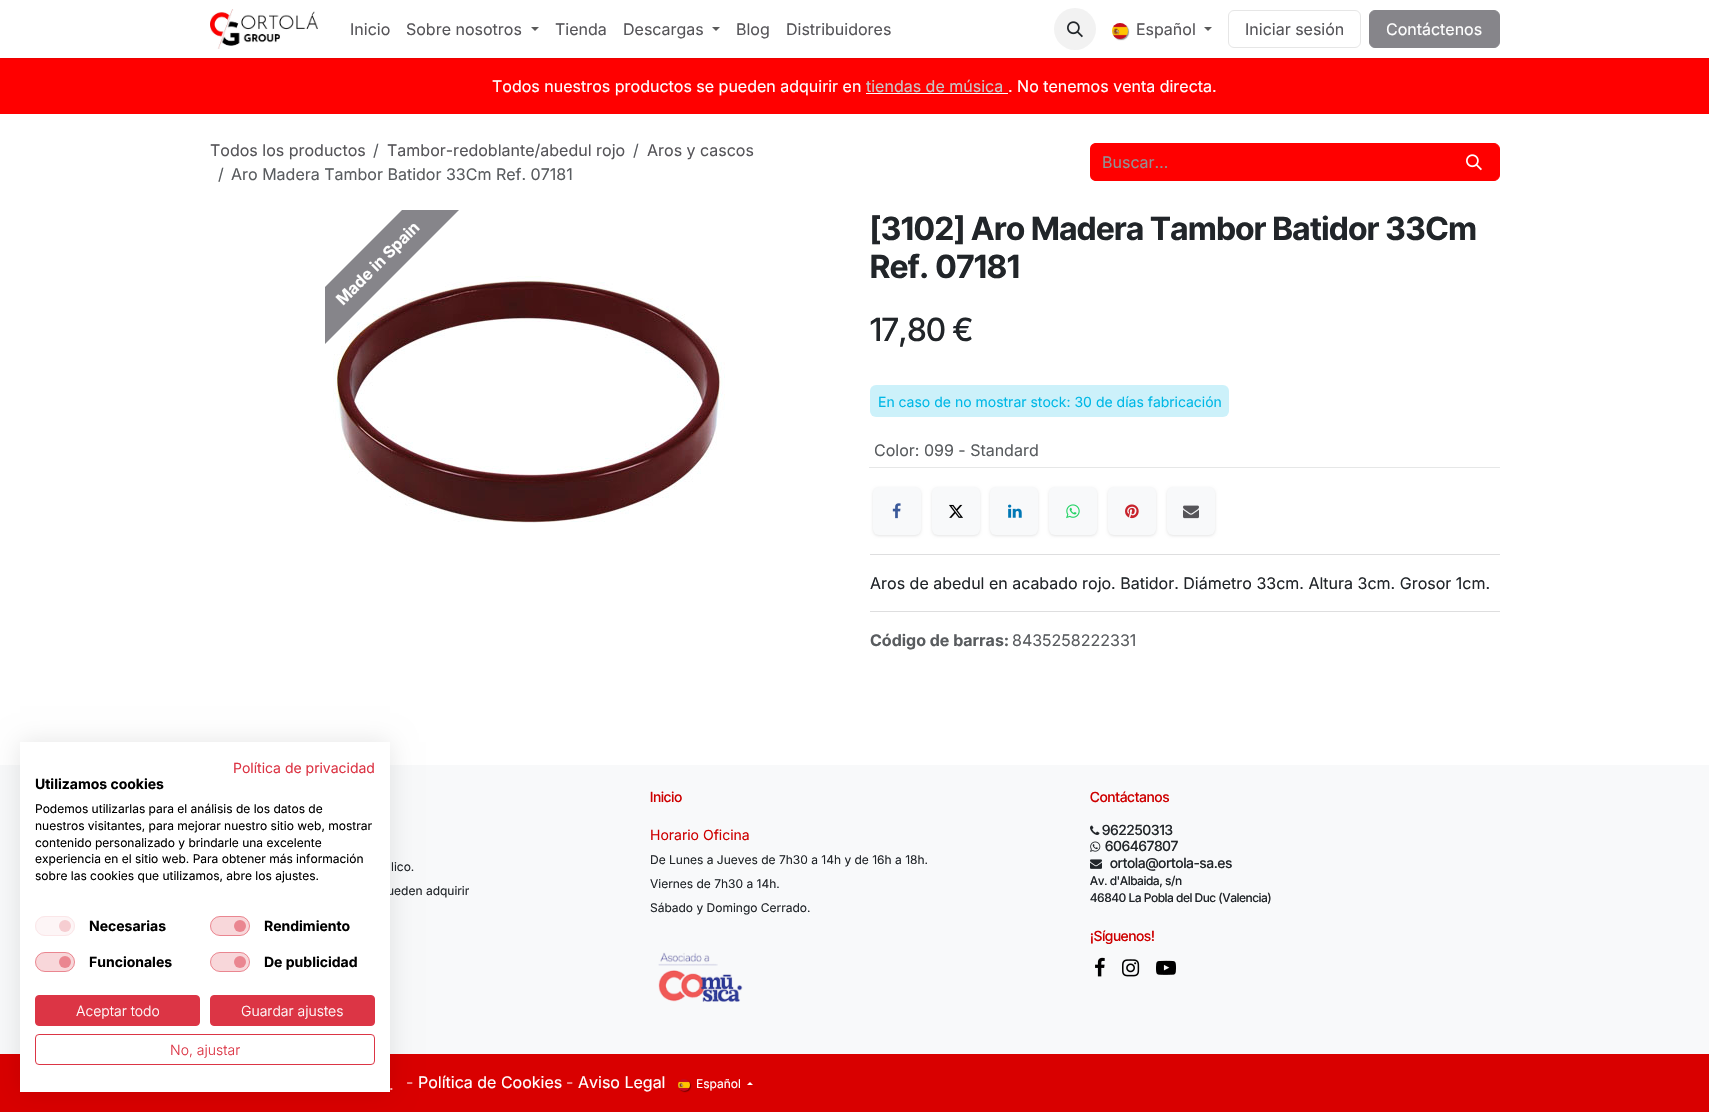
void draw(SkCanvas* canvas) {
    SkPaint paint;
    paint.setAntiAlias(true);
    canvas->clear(0xFFFFFFFF);
    paint.setColor(0xFFF8F9FA);
    canvas->drawRect(SkRect::MakeXYWH(0, 765, 1709, 289), paint);
    paint.setColor(0xFFD90000);
    canvas->drawRect(SkRect::MakeXYWH(0, 1054, 1709, 58), paint);
    paint.setColor(0x1A000000);
    paint.setMaskFilter(SkMaskFilter::MakeBlur(kNormal_SkBlurStyle, 12));
    canvas->drawRect(SkRect::MakeXYWH(20, 742, 370, 350), paint);
    paint.setMaskFilter(nullptr);
    SkFont font1(fontMgr->matchFamilyStyle("Inter", SkFontStyle::Normal()), 12);
    font1.setSubpixel(true);
    paint.setColor(0xFF212529);
    canvas->drawString("ueden adquirir", 387, 895, font1, paint);
    SkFont font2(fontMgr->matchFamilyStyle("Inter", SkFontStyle::Normal()), 16);
    font2.setSubpixel(true);
    paint.setColor(0xFFF4B3B3);
    canvas->drawString(".", 389, 1090, font2, paint);
    paint.setColor(0xFFFFFFFF);
    canvas->drawRect(SkRect::MakeXYWH(20, 742, 370, 350), paint);
    SkFont font3(fontMgr->matchFamilyStyle("Inter", SkFontStyle::Normal()), 14);
    font3.setSubpixel(true);
    paint.setColor(0xFFDC3545);
    canvas->drawString("Política de privacidad", 233, 773, font3, paint);
    SkFont font4(fontMgr->matchFamilyStyle("Inter", SkFontStyle::Bold()), 14);
    font4.setSubpixel(true);
    paint.setColor(0xFF000000);
    canvas->drawString("Utilizamos cookies", 35, 789, font4, paint);
    canvas->drawString("Podemos utilizarlas para el análisis de los datos de", 35, 813, font1, paint);
    canvas->drawString("nuestros visitantes, para mejorar nuestro sitio web, mostrar", 35, 830, font1, paint);
    canvas->drawString("contenido personalizado y brindarle una excelente", 35, 847, font1, paint);
    canvas->drawString("experiencia en el sitio web. Para obtener más información", 35, 863, font1, paint);
    canvas->drawString("sobre las cookies que utilizamos, abre los ajustes.", 35, 880, font1, paint);
    paint.setColor(0xFFFDF5F6);
    canvas->drawRoundRect(SkRect::MakeXYWH(35, 916, 40, 20), 10, 10, paint);
    paint.setColor(0xFFF6CDD1);
    canvas->drawCircle(65, 926, 6, paint);
    paint.setStyle(SkPaint::kStroke_Style);
    paint.setStrokeWidth(1);
    paint.setColor(0xFFFBE6E8);
    canvas->drawRoundRect(SkRect::MakeXYWH(35.5f, 916.5f, 39, 19), 9.5f, 9.5f, paint);
    paint.setStyle(SkPaint::kFill_Style);
    paint.setColor(0xFF000000);
    canvas->drawString("Necesarias", 89, 931, font4, paint);
    paint.setColor(0xFFF8D7DA);
    canvas->drawRoundRect(SkRect::MakeXYWH(210, 916, 40, 20), 10, 10, paint);
    paint.setColor(0xFFEA8690);
    canvas->drawCircle(240, 926, 6, paint);
    paint.setStyle(SkPaint::kStroke_Style);
    paint.setColor(0x80DC3545);
    canvas->drawRoundRect(SkRect::MakeXYWH(210.5f, 916.5f, 39, 19), 9.5f, 9.5f, paint);
    paint.setStyle(SkPaint::kFill_Style);
    paint.setColor(0xFF000000);
    canvas->drawString("Rendimiento", 264, 931, font4, paint);
    paint.setColor(0xFFF8D7DA);
    canvas->drawRoundRect(SkRect::MakeXYWH(35, 952, 40, 20), 10, 10, paint);
    paint.setColor(0xFFEA8690);
    canvas->drawCircle(65, 962, 6, paint);
    paint.setStyle(SkPaint::kStroke_Style);
    paint.setColor(0x80DC3545);
    canvas->drawRoundRect(SkRect::MakeXYWH(35.5f, 952.5f, 39, 19), 9.5f, 9.5f, paint);
    paint.setStyle(SkPaint::kFill_Style);
    paint.setColor(0xFF000000);
    canvas->drawString("Funcionales", 89, 967, font4, paint);
    paint.setColor(0xFFF8D7DA);
    canvas->drawRoundRect(SkRect::MakeXYWH(210, 952, 40, 20), 10, 10, paint);
    paint.setColor(0xFFEA8690);
    canvas->drawCircle(240, 962, 6, paint);
    paint.setStyle(SkPaint::kStroke_Style);
    paint.setColor(0x80DC3545);
    canvas->drawRoundRect(SkRect::MakeXYWH(210.5f, 952.5f, 39, 19), 9.5f, 9.5f, paint);
    paint.setStyle(SkPaint::kFill_Style);
    paint.setColor(0xFF000000);
    canvas->drawString("De publicidad", 264, 967, font4, paint);
    paint.setColor(0xFFDC3545);
    canvas->drawRoundRect(SkRect::MakeXYWH(35.5f, 995.5f, 164, 30), 3.5f, 3.5f, paint);
    paint.setStyle(SkPaint::kStroke_Style);
    canvas->drawRoundRect(SkRect::MakeXYWH(35.5f, 995.5f, 164, 30), 3.5f, 3.5f, paint);
    SkFont font5(fontMgr->matchFamilyStyle("Inter", SkFontStyle(300, SkFontStyle::kNormal_Width, SkFontStyle::kUpright_Slant)), 14);
    font5.setSubpixel(true);
    paint.setStyle(SkPaint::kFill_Style);
    paint.setColor(0xFFFFFFFF);
    canvas->drawString("Aceptar todo", 76, 1016, font5, paint);
    paint.setColor(0xFFDC3545);
    canvas->drawRoundRect(SkRect::MakeXYWH(210.5f, 995.5f, 164, 30), 3.5f, 3.5f, paint);
    paint.setStyle(SkPaint::kStroke_Style);
    canvas->drawRoundRect(SkRect::MakeXYWH(210.5f, 995.5f, 164, 30), 3.5f, 3.5f, paint);
    paint.setStyle(SkPaint::kFill_Style);
    paint.setColor(0xFFFFFFFF);
    canvas->drawString("Guardar ajustes", 241, 1016, font5, paint);
    paint.setStyle(SkPaint::kStroke_Style);
    paint.setColor(0xFFDC3545);
    canvas->drawRoundRect(SkRect::MakeXYWH(35.5f, 1034.5f, 339, 30), 3.5f, 3.5f, paint);
    paint.setStyle(SkPaint::kFill_Style);
    canvas->drawString("No, ajustar", 170, 1055, font5, paint);
    paint.setColor(0xFFFF0000);
    canvas->drawRect(SkRect::MakeXYWH(0, 58, 1709, 56), paint);
    canvas->save();
    canvas->clipRect(SkRect::MakeXYWH(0, 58, 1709, 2));
    paint.setColor(0x1A000000);
    paint.setMaskFilter(SkMaskFilter::MakeBlur(kNormal_SkBlurStyle, 1.5f));
    canvas->drawRect(SkRect::MakeXYWH(0, 1, 1709, 58), paint);
    paint.setMaskFilter(nullptr);
    canvas->restore();
    canvas->drawImageRect(SkImages::DeferredFromEncodedData(SkData::MakeFromFileName("img1.png")), SkRect::MakeXYWH(210, 9, 108, 40), SkSamplingOptions());
    paint.setColor(0xFF565559);
    canvas->drawString("Inicio", 350, 35, font2, paint);
    canvas->drawString("Sobre nosotros", 406, 35, font2, paint);
    paint.setColor(0xFF595959);
    canvas->drawPath(SkPathBuilder().moveTo(531, 27).lineTo(539, 27).lineTo(535, 31).close().detach(), paint);
    paint.setColor(0xFF565559);
    canvas->drawString("Tienda", 555, 35, font2, paint);
    canvas->drawString("Descargas", 623, 35, font2, paint);
    paint.setColor(0xFF595959);
    canvas->drawPath(SkPathBuilder().moveTo(712, 27).lineTo(720, 27).lineTo(716, 31).close().detach(), paint);
    paint.setColor(0xFF565559);
    canvas->drawString("Blog", 736, 35, font2, paint);
    canvas->drawString("Distribuidores", 786, 35, font2, paint);
    paint.setColor(0xFFF2F2F2);
    canvas->drawCircle(1075, 29, 21, paint);
    canvas->drawImageRect(SkImages::DeferredFromEncodedData(SkData::MakeFromFileName("img2.png")), SkRect::MakeXYWH(1067, 21, 16, 17), SkSamplingOptions());
    paint.setColor(0x6E000000);
    paint.setMaskFilter(SkMaskFilter::MakeBlur(kNormal_SkBlurStyle, 0.5f));
    canvas->drawRoundRect(SkRect::MakeXYWH(1113, 24, 16, 16), 8, 8, paint);
    paint.setMaskFilter(nullptr);
    canvas->drawImageRect(SkImages::DeferredFromEncodedData(SkData::MakeFromFileName("img3.png")), SkRect::MakeXYWH(1112, 23, 16, 16), SkSamplingOptions());
    paint.setColor(0xFF565559);
    canvas->drawString("Español", 1136, 35, font2, paint);
    paint.setColor(0xFF595959);
    canvas->drawPath(SkPathBuilder().moveTo(1204, 27).lineTo(1212, 27).lineTo(1208, 31).close().detach(), paint);
    paint.setStyle(SkPaint::kStroke_Style);
    paint.setColor(0xFFE6E6E6);
    canvas->drawRoundRect(SkRect::MakeXYWH(1228.5f, 10.5f, 132, 37), 5.5f, 5.5f, paint);
    paint.setStyle(SkPaint::kFill_Style);
    paint.setColor(0xFF565559);
    canvas->drawString("Iniciar sesión", 1245, 35, font2, paint);
    paint.setColor(0xFF86858A);
    canvas->drawRoundRect(SkRect::MakeXYWH(1369.5f, 10.5f, 130, 37), 5.5f, 5.5f, paint);
    paint.setStyle(SkPaint::kStroke_Style);
    canvas->drawRoundRect(SkRect::MakeXYWH(1369.5f, 10.5f, 130, 37), 5.5f, 5.5f, paint);
    paint.setStyle(SkPaint::kFill_Style);
    paint.setColor(0xFFFFFFFF);
    canvas->drawString("Contáctenos", 1386, 35, font2, paint);
    canvas->drawString("Todos nuestros productos se pueden adquirir en", 492, 92, font2, paint);
    paint.setColor(0xFFC7C6C8);
    canvas->drawString("tiendas de música", 866, 92, font2, paint);
    paint.setColor(0xFFFFFFFF);
    canvas->drawRect(SkRect::MakeXYWH(866, 93, 142, 1), paint);
    canvas->drawString(". No tenemos venta directa.", 1008, 92, font2, paint);
    paint.setColor(0xFF565559);
    canvas->drawString("Todos los productos", 210, 156, font2, paint);
    paint.setColor(0xFF595C5F);
    canvas->drawString("/", 373, 156, font2, paint);
    paint.setColor(0xFF565559);
    canvas->drawString("Tambor-redoblante/abedul rojo", 387, 156, font2, paint);
    paint.setColor(0xFF595C5F);
    canvas->drawString("/", 633, 156, font2, paint);
    paint.setColor(0xFF565559);
    canvas->drawString("Aros y cascos", 647, 156, font2, paint);
    paint.setColor(0xFF595C5F);
    canvas->drawString("/", 218, 180, font2, paint);
    canvas->drawString("Aro Madera Tambor Batidor 33Cm Ref. 07181", 231, 180, font2, paint);
    paint.setColor(0xFFFF0000);
    canvas->drawPath(SkPathBuilder().moveTo(1096, 143).lineTo(1450, 143).lineTo(1450, 181).lineTo(1096, 181).cubicTo(1092.5f, 181, 1090, 178.5f, 1090, 175).lineTo(1090, 149).cubicTo(1090, 145.5f, 1092.5f, 143, 1096, 143).close().detach(), paint);
    paint.setColor(0xFF909294);
    canvas->drawString("Buscar…", 1102, 168, font2, paint);
    paint.setColor(0xFFFF0000);
    canvas->drawPath(SkPathBuilder().moveTo(1449.5f, 143.5f).lineTo(1494, 143.5f).cubicTo(1497, 143.5f, 1499.5f, 146, 1499.5f, 149).lineTo(1499.5f, 175).cubicTo(1499.5f, 178, 1497, 180.5f, 1494, 180.5f).lineTo(1449.5f, 180.5f).close().detach(), paint);
    paint.setStyle(SkPaint::kStroke_Style);
    canvas->drawPath(SkPathBuilder().moveTo(1449.5f, 143.5f).lineTo(1494, 143.5f).cubicTo(1497, 143.5f, 1499.5f, 146, 1499.5f, 149).lineTo(1499.5f, 175).cubicTo(1499.5f, 178, 1497, 180.5f, 1494, 180.5f).lineTo(1449.5f, 180.5f).close().detach(), paint);
    canvas->drawImageRect(SkImages::DeferredFromEncodedData(SkData::MakeFromFileName("img4.png")), SkRect::MakeXYWH(1466, 154, 16, 17), SkSamplingOptions());
    canvas->drawImageRect(SkImages::DeferredFromEncodedData(SkData::MakeFromFileName("img5.png")), SkRect::MakeXYWH(333, 276, 392, 247), SkSamplingOptions());
    canvas->save();
    canvas->clipRect(SkRect::MakeXYWH(325, 210, 400, 400));
    paint.setStyle(SkPaint::kFill_Style);
    paint.setColor(0xFF86858A);
    canvas->drawPath(SkPathBuilder().moveTo(254, 358).lineTo(473, 139).lineTo(501, 168).lineTo(282, 387).close().detach(), paint);
    canvas->restore();
    SkFont font6(fontMgr->matchFamilyStyle("Inter", SkFontStyle::Bold()), 16);
    font6.setSubpixel(true);
    paint.setColor(0xFFFFFFFF);
    canvas->save();
    canvas->rotate(-45, 343, 306);
    canvas->drawString("Made in Spain", 343, 306, font6, paint);
    canvas->restore();
    SkFont font7(fontMgr->matchFamilyStyle("Inter Tight", SkFontStyle::Bold()), 32);
    font7.setSubpixel(true);
    paint.setColor(0xFF212529);
    canvas->drawString("[3102] Aro Madera Tambor Batidor 33Cm", 870, 240, font7, paint);
    canvas->drawString("Ref. 07181", 870, 278, font7, paint);
    SkFont font8(fontMgr->matchFamilyStyle("Inter Tight", SkFontStyle(500, SkFontStyle::kNormal_Width, SkFontStyle::kUpright_Slant)), 32);
    font8.setSubpixel(true);
    canvas->drawString("17,80 €", 870, 341, font8, paint);
    paint.setColor(0xFF00B8E6);
    canvas->drawString("En caso de no mostrar stock: 30 de días fabricación", 878, 407, font3, paint);
    paint.setColor(0x3300B8E6);
    canvas->drawRoundRect(SkRect::MakeXYWH(870, 385, 359, 32), 6, 6, paint);
    paint.setColor(0xFFE6E7E7);
    canvas->drawRect(SkRect::MakeXYWH(869, 467, 631, 1), paint);
    paint.setColor(0xFF595C5F);
    canvas->drawString("Color: 099 - Standard", 874, 456, font2, paint);
    paint.setColor(0x1A000000);
    paint.setMaskFilter(SkMaskFilter::MakeBlur(kNormal_SkBlurStyle, 1.5f));
    canvas->drawRoundRect(SkRect::MakeXYWH(873, 488, 48, 48), 6, 6, paint);
    paint.setMaskFilter(nullptr);
    paint.setColor(0xFFF8F9FA);
    canvas->drawRoundRect(SkRect::MakeXYWH(873, 487, 48, 48), 6, 6, paint);
    canvas->drawImageRect(SkImages::DeferredFromEncodedData(SkData::MakeFromFileName("img6.png")), SkRect::MakeXYWH(892, 503, 9, 16), SkSamplingOptions());
    paint.setColor(0x1A000000);
    paint.setMaskFilter(SkMaskFilter::MakeBlur(kNormal_SkBlurStyle, 1.5f));
    canvas->drawRoundRect(SkRect::MakeXYWH(932, 488, 48, 48), 6, 6, paint);
    paint.setMaskFilter(nullptr);
    paint.setColor(0xFFF8F9FA);
    canvas->drawRoundRect(SkRect::MakeXYWH(932, 487, 48, 48), 6, 6, paint);
    canvas->drawImageRect(SkImages::DeferredFromEncodedData(SkData::MakeFromFileName("img7.png")), SkRect::MakeXYWH(949, 504, 14, 14), SkSamplingOptions());
    paint.setColor(0x1A000000);
    paint.setMaskFilter(SkMaskFilter::MakeBlur(kNormal_SkBlurStyle, 1.5f));
    canvas->drawRoundRect(SkRect::MakeXYWH(990, 488, 48, 48), 6, 6, paint);
    paint.setMaskFilter(nullptr);
    paint.setColor(0xFFF8F9FA);
    canvas->drawRoundRect(SkRect::MakeXYWH(990, 487, 48, 48), 6, 6, paint);
    canvas->drawImageRect(SkImages::DeferredFromEncodedData(SkData::MakeFromFileName("img8.png")), SkRect::MakeXYWH(1008, 504, 14, 14), SkSamplingOptions());
    paint.setColor(0x1A000000);
    paint.setMaskFilter(SkMaskFilter::MakeBlur(kNormal_SkBlurStyle, 1.5f));
    canvas->drawRoundRect(SkRect::MakeXYWH(1049, 488, 48, 48), 6, 6, paint);
    paint.setMaskFilter(nullptr);
    paint.setColor(0xFFF8F9FA);
    canvas->drawRoundRect(SkRect::MakeXYWH(1049, 487, 48, 48), 6, 6, paint);
    canvas->drawImageRect(SkImages::DeferredFromEncodedData(SkData::MakeFromFileName("img9.png")), SkRect::MakeXYWH(1066, 504, 14, 15), SkSamplingOptions());
    paint.setColor(0x1A000000);
    paint.setMaskFilter(SkMaskFilter::MakeBlur(kNormal_SkBlurStyle, 1.5f));
    canvas->drawRoundRect(SkRect::MakeXYWH(1108, 488, 48, 48), 6, 6, paint);
    paint.setMaskFilter(nullptr);
    paint.setColor(0xFFF8F9FA);
    canvas->drawRoundRect(SkRect::MakeXYWH(1108, 487, 48, 48), 6, 6, paint);
    canvas->drawImageRect(SkImages::DeferredFromEncodedData(SkData::MakeFromFileName("img10.png")), SkRect::MakeXYWH(1125, 504, 14, 15), SkSamplingOptions());
    paint.setColor(0x1A000000);
    paint.setMaskFilter(SkMaskFilter::MakeBlur(kNormal_SkBlurStyle, 1.5f));
    canvas->drawRoundRect(SkRect::MakeXYWH(1167, 488, 48, 48), 6, 6, paint);
    paint.setMaskFilter(nullptr);
    paint.setColor(0xFFF8F9FA);
    canvas->drawRoundRect(SkRect::MakeXYWH(1167, 487, 48, 48), 6, 6, paint);
    canvas->drawImageRect(SkImages::DeferredFromEncodedData(SkData::MakeFromFileName("img11.png")), SkRect::MakeXYWH(1183, 505, 16, 14), SkSamplingOptions());
    paint.setColor(0xFFDEDEDF);
    canvas->drawRect(SkRect::MakeXYWH(870, 554, 630, 1), paint);
    paint.setColor(0xFF212529);
    canvas->drawString("Aros de abedul en acabado rojo. Batidor. Diámetro 33cm. Altura 3cm. Grosor 1cm.", 870, 589, font2, paint);
    paint.setColor(0xFFDEDEDF);
    canvas->drawRect(SkRect::MakeXYWH(870, 611, 630, 1), paint);
    paint.setColor(0xFF595C5F);
    canvas->drawString("Código de barras:", 870, 646, font6, paint);
    canvas->drawString("8435258222331", 1012, 646, font2, paint);
    paint.setColor(0xFF212529);
    canvas->drawString("lico.", 391, 871, font1, paint);
    SkFont font9(fontMgr->matchFamilyStyle("Inter Tight", SkFontStyle(500, SkFontStyle::kNormal_Width, SkFontStyle::kUpright_Slant)), 14);
    font9.setSubpixel(true);
    paint.setColor(0xFFCE0000);
    canvas->drawString("Inicio", 650, 802, font9, paint);
    canvas->drawString("Horario Oficina", 650, 840, font3, paint);
    paint.setColor(0xFF212529);
    canvas->drawString("De Lunes a Jueves de 7h30 a 14h y de 16h a 18h.", 650, 864, font1, paint);
    canvas->drawString("Viernes de 7h30 a 14h.", 650, 888, font1, paint);
    canvas->drawString("Sábado y Domingo Cerrado.", 650, 912, font1, paint);
    canvas->drawImageRect(SkImages::DeferredFromEncodedData(SkData::MakeFromFileName("img12.png")), SkRect::MakeXYWH(658, 952, 85, 50), SkSamplingOptions());
    paint.setColor(0xFFCE0000);
    canvas->drawString("Contáctanos", 1090, 802, font9, paint);
    canvas->drawImageRect(SkImages::DeferredFromEncodedData(SkData::MakeFromFileName("img13.png")), SkRect::MakeXYWH(1090, 825, 10, 10), SkSamplingOptions());
    paint.setColor(0xFF212529);
    canvas->drawString("962250313", 1102, 835, font9, paint);
    canvas->drawImageRect(SkImages::DeferredFromEncodedData(SkData::MakeFromFileName("img14.png")), SkRect::MakeXYWH(1090, 841, 11, 11), SkSamplingOptions());
    canvas->drawString("606467807", 1105, 851, font9, paint);
    canvas->drawImageRect(SkImages::DeferredFromEncodedData(SkData::MakeFromFileName("img15.png")), SkRect::MakeXYWH(1090, 859, 12, 10), SkSamplingOptions());
    canvas->drawString("ortola@ortola-sa.es", 1110, 868, font9, paint);
    SkFont font10(fontMgr->matchFamilyStyle("Inter Tight", SkFontStyle(500, SkFontStyle::kNormal_Width, SkFontStyle::kUpright_Slant)), 12);
    font10.setSubpixel(true);
    canvas->drawString("Av. d'Albaida, s/n", 1090, 885, font10, paint);
    canvas->drawString("46840 La Pobla del Duc (Valencia)", 1090, 902, font10, paint);
    paint.setColor(0xFFCE0000);
    canvas->drawString("¡Síguenos!", 1090, 941, font9, paint);
    canvas->drawImageRect(SkImages::DeferredFromEncodedData(SkData::MakeFromFileName("img16.png")), SkRect::MakeXYWH(1095, 957, 10, 20), SkSamplingOptions());
    canvas->drawImageRect(SkImages::DeferredFromEncodedData(SkData::MakeFromFileName("img17.png")), SkRect::MakeXYWH(1122, 959, 18, 18), SkSamplingOptions());
    canvas->drawImageRect(SkImages::DeferredFromEncodedData(SkData::MakeFromFileName("img18.png")), SkRect::MakeXYWH(1156, 960, 20, 15), SkSamplingOptions());
    paint.setColor(0xFFF4B3B3);
    canvas->drawString("-", 406, 1088, font2, paint);
    paint.setColor(0xFFFFFFFF);
    canvas->drawString("Política de Cookies", 418, 1088, font2, paint);
    paint.setColor(0xFFF4B3B3);
    canvas->drawString("-", 566, 1088, font2, paint);
    paint.setColor(0xFFFFFFFF);
    canvas->drawString("Aviso Legal", 578, 1088, font2, paint);
    paint.setColor(0x6E000000);
    paint.setMaskFilter(SkMaskFilter::MakeBlur(kNormal_SkBlurStyle, 0.5f));
    canvas->drawRoundRect(SkRect::MakeXYWH(679, 1080, 12, 12), 6, 6, paint);
    paint.setMaskFilter(nullptr);
    canvas->drawImageRect(SkImages::DeferredFromEncodedData(SkData::MakeFromFileName("img19.png")), SkRect::MakeXYWH(678, 1079, 12, 12), SkSamplingOptions());
    paint.setColor(0xFFFFFFFF);
    canvas->drawString("Español", 696, 1088, font1, paint);
    canvas->drawPath(SkPathBuilder().moveTo(753, 1085).lineTo(747, 1085).lineTo(750, 1082).close().detach(), paint);
}
